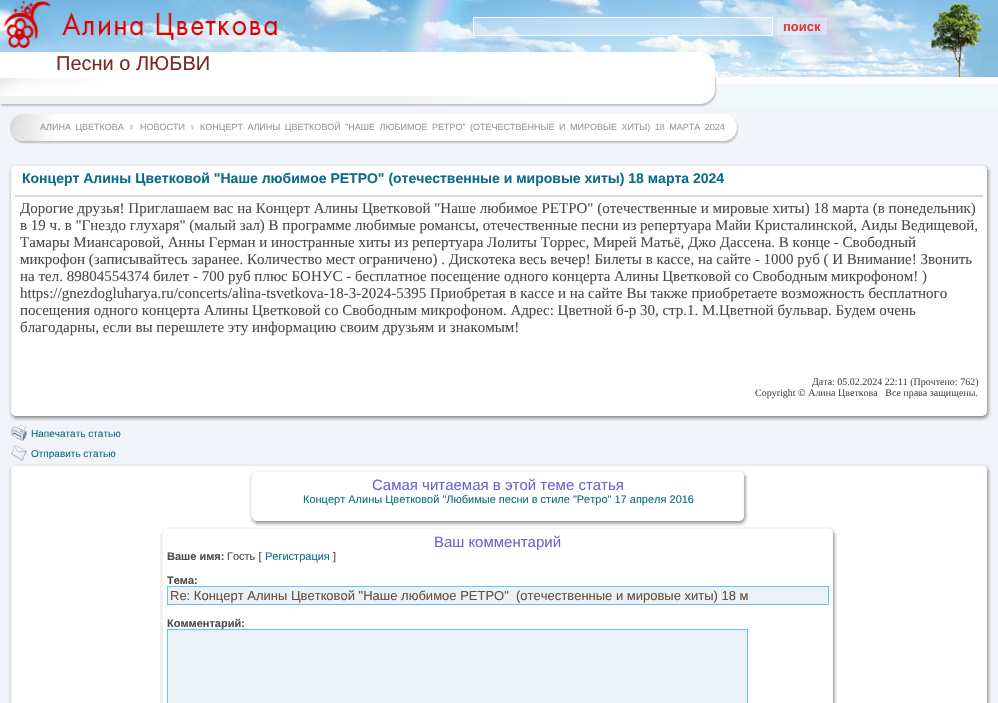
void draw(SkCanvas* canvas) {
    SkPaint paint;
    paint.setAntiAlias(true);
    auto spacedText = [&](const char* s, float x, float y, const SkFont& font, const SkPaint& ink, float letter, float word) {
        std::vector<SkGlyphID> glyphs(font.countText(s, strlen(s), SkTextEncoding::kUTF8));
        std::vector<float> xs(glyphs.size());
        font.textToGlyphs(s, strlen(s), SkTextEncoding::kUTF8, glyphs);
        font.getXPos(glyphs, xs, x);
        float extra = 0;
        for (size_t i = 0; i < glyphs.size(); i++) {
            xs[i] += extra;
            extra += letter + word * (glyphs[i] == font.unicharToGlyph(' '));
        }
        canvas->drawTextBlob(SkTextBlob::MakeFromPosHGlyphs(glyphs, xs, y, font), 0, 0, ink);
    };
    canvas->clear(0xFFF1F5F9);
    canvas->drawImageRect(SkImages::DeferredFromEncodedData(SkData::MakeFromFileName("img1.png")), SkRect::MakeXYWH(0, 0, 998, 52), SkSamplingOptions());
    canvas->drawImageRect(SkImages::DeferredFromEncodedData(SkData::MakeFromFileName("img2.png")), SkRect::MakeXYWH(3, 1, 274, 47), SkSamplingOptions());
    paint.setColor(0x54FFFFFF);
    canvas->drawRect(SkRect::MakeXYWH(473.5f, 17.5f, 299, 18), paint);
    paint.setStyle(SkPaint::kStroke_Style);
    paint.setStrokeWidth(1);
    paint.setColor(0xFFFFFFFF);
    canvas->drawRect(SkRect::MakeXYWH(473.5f, 17.5f, 299, 18), paint);
    paint.setStyle(SkPaint::kFill_Style);
    paint.setColor(0x54FFFFFF);
    canvas->drawRect(SkRect::MakeXYWH(777, 18, 50, 17), paint);
    SkFont font1(fontMgr->matchFamilyStyle("Liberation Sans", SkFontStyle::Bold()), 13);
    font1.setSubpixel(true);
    paint.setColor(0xFFE33333);
    canvas->drawString("поиск", 783, 31, font1, paint);
    canvas->drawImageRect(SkImages::DeferredFromEncodedData(SkData::MakeFromFileName("img3.png")), SkRect::MakeXYWH(0, 52, 998, 55), SkSamplingOptions());
    SkFont font2(fontMgr->matchFamilyStyle("Liberation Sans", SkFontStyle::Normal()), 20);
    font2.setSubpixel(true);
    paint.setColor(0xFF7B2828);
    canvas->drawString("Песни о ЛЮБВИ", 56, 70, font2, paint);
    canvas->drawImageRect(SkImages::DeferredFromEncodedData(SkData::MakeFromFileName("img4.png")), SkRect::MakeXYWH(10, 114, 715, 30), SkSamplingOptions());
    SkFont font3(fontMgr->matchFamilyStyle("Liberation Sans", SkFontStyle::Normal()), 9);
    font3.setSubpixel(true);
    paint.setColor(0xFF999999);
    spacedText("АЛИНА ЦВЕТКОВА", 40, 130, font3, paint, 0, 2);
    canvas->drawString("♀", 128, 130, font3, paint);
    canvas->drawString("НОВОСТИ", 140, 130, font3, paint);
    canvas->drawString("♀", 189, 130, font3, paint);
    spacedText("КОНЦЕРТ АЛИНЫ ЦВЕТКОВОЙ \"НАШЕ ЛЮБИМОЕ РЕТРО\"", 200, 130, font3, paint, 0, 2);
    spacedText("(ОТЕЧЕСТВЕННЫЕ И МИРОВЫЕ ХИТЫ) 18 МАРТА 2024", 470, 130, font3, paint, 0, 2);
    canvas->drawImageRect(SkImages::DeferredFromEncodedData(SkData::MakeFromFileName("img5.png")), SkRect::MakeXYWH(725, 114, 13, 30), SkSamplingOptions());
    canvas->drawImageRect(SkImages::DeferredFromEncodedData(SkData::MakeFromFileName("img6.png")), SkRect::MakeXYWH(9, 165, 6, 5), SkSamplingOptions());
    canvas->drawImageRect(SkImages::DeferredFromEncodedData(SkData::MakeFromFileName("img7.png")), SkRect::MakeXYWH(15, 164, 968, 6), SkSamplingOptions());
    canvas->drawImageRect(SkImages::DeferredFromEncodedData(SkData::MakeFromFileName("img8.png")), SkRect::MakeXYWH(983, 164, 8, 6), SkSamplingOptions());
    canvas->drawImageRect(SkImages::DeferredFromEncodedData(SkData::MakeFromFileName("img9.png")), SkRect::MakeXYWH(9, 170, 6, 242), SkSamplingOptions());
    paint.setColor(0xFFFFFFFF);
    canvas->drawRect(SkRect::MakeXYWH(15, 170, 968, 242), paint);
    paint.setColor(0xFFDADADA);
    canvas->drawRect(SkRect::MakeXYWH(15, 195, 968, 2), paint);
    SkFont font4(fontMgr->matchFamilyStyle("Liberation Sans", SkFontStyle::Bold()), 14);
    font4.setSubpixel(true);
    paint.setColor(0xFF0C6C89);
    canvas->drawString("Концерт Алины Цветковой \"Наше любимое РЕТРО\" (отечественные и мировые хиты) 18 марта 2024", 22, 183, font4, paint);
    SkFont font5(fontMgr->matchFamilyStyle("Liberation Serif", SkFontStyle::Normal()), 15);
    font5.setSubpixel(true);
    paint.setColor(0xFF4C4C4C);
    canvas->drawString("Дорогие друзья! Приглашаем вас на Концерт Алины Цветковой \"Наше любимое РЕТРО\" (отечественные и мировые хиты) 18 марта (в понедельник)", 20, 213, font5, paint);
    canvas->drawString("в 19 ч. в \"Гнездо глухаря\" (малый зал) В программе любимые романсы, отечественные песни из репертуара Майи Кристалинской, Аиды Ведищевой,", 20, 230, font5, paint);
    canvas->drawString("Тамары Миансаровой, Анны Герман и иностранные хиты из репертуара Лолиты Торрес, Мирей Матьё, Джо Дассена. В конце - Свободный", 20, 247, font5, paint);
    canvas->drawString("микрофон (записывайтесь заранее. Количество мест ограничено) . Дискотека весь вечер! Билеты в кассе, на сайте - 1000 руб ( И Внимание! Звонить", 20, 264, font5, paint);
    canvas->drawString("на тел. 89804554374 билет - 700 руб плюс БОНУС - бесплатное посещение одного концерта Алины Цветковой со Свободным микрофоном! )", 20, 281, font5, paint);
    canvas->drawString("https://gnezdogluharya.ru/concerts/alina-tsvetkova-18-3-2024-5395 Приобретая в кассе и на сайте Вы также приобретаете возможность бесплатного", 20, 298, font5, paint);
    canvas->drawString("посещения одного концерта Алины Цветковой со Свободным микрофоном. Адрес: Цветной б-р 30, стр.1. М.Цветной бульвар. Будем очень", 20, 315, font5, paint);
    canvas->drawString("благодарны, если вы перешлете эту информацию своим друзьям и знакомым!", 20, 332, font5, paint);
    SkFont font6(fontMgr->matchFamilyStyle("Liberation Serif", SkFontStyle::Normal()), 10);
    font6.setSubpixel(true);
    canvas->drawString("Дата: 05.02.2024 22:11 (Прочтено: 762)", 812, 385, font6, paint);
    canvas->drawString("Copyright © Алина Цветкова   Все права защищены.", 755, 396, font6, paint);
    canvas->drawImageRect(SkImages::DeferredFromEncodedData(SkData::MakeFromFileName("img10.png")), SkRect::MakeXYWH(983, 170, 8, 242), SkSamplingOptions());
    canvas->drawImageRect(SkImages::DeferredFromEncodedData(SkData::MakeFromFileName("img11.png")), SkRect::MakeXYWH(9, 412, 6, 9), SkSamplingOptions());
    canvas->drawImageRect(SkImages::DeferredFromEncodedData(SkData::MakeFromFileName("img12.png")), SkRect::MakeXYWH(15, 412, 968, 9), SkSamplingOptions());
    canvas->drawImageRect(SkImages::DeferredFromEncodedData(SkData::MakeFromFileName("img13.png")), SkRect::MakeXYWH(983, 412, 8, 9), SkSamplingOptions());
    canvas->drawImageRect(SkImages::DeferredFromEncodedData(SkData::MakeFromFileName("img14.png")), SkRect::MakeXYWH(11, 425, 16, 16), SkSamplingOptions());
    SkFont font7(fontMgr->matchFamilyStyle("Liberation Sans", SkFontStyle::Normal()), 10);
    font7.setSubpixel(true);
    paint.setColor(0xFF0C6C89);
    canvas->drawString("Напечатать статью", 31, 437, font7, paint);
    canvas->drawImageRect(SkImages::DeferredFromEncodedData(SkData::MakeFromFileName("img15.png")), SkRect::MakeXYWH(11, 445, 16, 16), SkSamplingOptions());
    canvas->drawString("Отправить статью", 31, 457, font7, paint);
    canvas->drawImageRect(SkImages::DeferredFromEncodedData(SkData::MakeFromFileName("img6.png")), SkRect::MakeXYWH(9, 465, 6, 5), SkSamplingOptions());
    canvas->drawImageRect(SkImages::DeferredFromEncodedData(SkData::MakeFromFileName("img7.png")), SkRect::MakeXYWH(15, 464, 968, 6), SkSamplingOptions());
    canvas->drawImageRect(SkImages::DeferredFromEncodedData(SkData::MakeFromFileName("img8.png")), SkRect::MakeXYWH(983, 464, 8, 6), SkSamplingOptions());
    canvas->drawImageRect(SkImages::DeferredFromEncodedData(SkData::MakeFromFileName("img16.png")), SkRect::MakeXYWH(9, 470, 6, 233), SkSamplingOptions());
    paint.setColor(0xFFFFFFFF);
    canvas->drawRect(SkRect::MakeXYWH(15, 470, 968, 233), paint);
    canvas->drawImageRect(SkImages::DeferredFromEncodedData(SkData::MakeFromFileName("img17.png")), SkRect::MakeXYWH(250, 471, 6, 5), SkSamplingOptions());
    canvas->drawImageRect(SkImages::DeferredFromEncodedData(SkData::MakeFromFileName("img18.png")), SkRect::MakeXYWH(256, 470, 484, 2), SkSamplingOptions());
    canvas->drawImageRect(SkImages::DeferredFromEncodedData(SkData::MakeFromFileName("img19.png")), SkRect::MakeXYWH(740, 470, 8, 6), SkSamplingOptions());
    paint.setColor(0xFFF0F0F0);
    canvas->drawRect(SkRect::MakeXYWH(249, 476, 3, 41), paint);
    SkFont font8(fontMgr->matchFamilyStyle("Liberation Sans", SkFontStyle::Normal()), 15);
    font8.setSubpixel(true);
    paint.setColor(0xFF6C64D0);
    canvas->drawString("Самая читаемая в этой теме статья", 372, 490, font8, paint);
    SkFont font9(fontMgr->matchFamilyStyle("Liberation Sans", SkFontStyle::Normal()), 11);
    font9.setSubpixel(true);
    paint.setColor(0xFF0C6C89);
    canvas->drawString("Концерт Алины Цветковой \"Любимые песни в стиле \"Ретро\" 17 апреля 2016", 303, 503, font9, paint);
    canvas->drawImageRect(SkImages::DeferredFromEncodedData(SkData::MakeFromFileName("img20.png")), SkRect::MakeXYWH(743, 476, 5, 41), SkSamplingOptions());
    canvas->drawImageRect(SkImages::DeferredFromEncodedData(SkData::MakeFromFileName("img21.png")), SkRect::MakeXYWH(250, 517, 6, 9), SkSamplingOptions());
    canvas->drawImageRect(SkImages::DeferredFromEncodedData(SkData::MakeFromFileName("img22.png")), SkRect::MakeXYWH(256, 521, 484, 5), SkSamplingOptions());
    canvas->drawImageRect(SkImages::DeferredFromEncodedData(SkData::MakeFromFileName("img23.png")), SkRect::MakeXYWH(740, 517, 8, 9), SkSamplingOptions());
    canvas->drawImageRect(SkImages::DeferredFromEncodedData(SkData::MakeFromFileName("img17.png")), SkRect::MakeXYWH(161, 528, 6, 5), SkSamplingOptions());
    canvas->drawImageRect(SkImages::DeferredFromEncodedData(SkData::MakeFromFileName("img24.png")), SkRect::MakeXYWH(167, 527, 662, 2), SkSamplingOptions());
    canvas->drawImageRect(SkImages::DeferredFromEncodedData(SkData::MakeFromFileName("img19.png")), SkRect::MakeXYWH(829, 527, 8, 6), SkSamplingOptions());
    paint.setColor(0xFFF0F0F0);
    canvas->drawRect(SkRect::MakeXYWH(160, 533, 3, 170), paint);
    paint.setColor(0xFF6C64D0);
    canvas->drawString("Ваш комментарий", 434, 547, font8, paint);
    SkFont font10(fontMgr->matchFamilyStyle("Liberation Sans", SkFontStyle::Bold()), 11);
    font10.setSubpixel(true);
    paint.setColor(0xFF4C4C4C);
    canvas->drawString("Ваше имя:", 167, 560, font10, paint);
    canvas->drawString("Гость [", 227, 560, font9, paint);
    paint.setColor(0xFF0C6C89);
    canvas->drawString("Регистрация", 265, 560, font9, paint);
    paint.setColor(0xFF4C4C4C);
    canvas->drawString("]", 333, 560, font9, paint);
    canvas->drawString("Тема:", 167, 584, font10, paint);
    paint.setColor(0xFFEAF1F7);
    canvas->drawRect(SkRect::MakeXYWH(167.5f, 586.5f, 661, 18), paint);
    paint.setStyle(SkPaint::kStroke_Style);
    paint.setColor(0xFF66C1FF);
    canvas->drawRect(SkRect::MakeXYWH(167.5f, 586.5f, 661, 18), paint);
    SkFont font11(fontMgr->matchFamilyStyle("Liberation Sans", SkFontStyle::Normal()), 13);
    font11.setSubpixel(true);
    paint.setStyle(SkPaint::kFill_Style);
    paint.setColor(0xFF684E3C);
    canvas->drawString("Re: Концерт Алины Цветковой \"Наше любимое РЕТРО\"  (отечественные и мировые хиты) 18 м", 170, 600, font11, paint);
    paint.setColor(0xFF4C4C4C);
    canvas->drawString("Комментарий:", 167, 627, font10, paint);
    paint.setColor(0xFFEAF1F7);
    canvas->drawRect(SkRect::MakeXYWH(167.5f, 629.5f, 580, 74), paint);
    paint.setStyle(SkPaint::kStroke_Style);
    paint.setColor(0xFF66C1FF);
    canvas->drawRect(SkRect::MakeXYWH(167.5f, 629.5f, 580, 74), paint);
    canvas->drawImageRect(SkImages::DeferredFromEncodedData(SkData::MakeFromFileName("img25.png")), SkRect::MakeXYWH(832, 533, 5, 170), SkSamplingOptions());
    canvas->drawImageRect(SkImages::DeferredFromEncodedData(SkData::MakeFromFileName("img26.png")), SkRect::MakeXYWH(983, 470, 8, 233), SkSamplingOptions());
}
